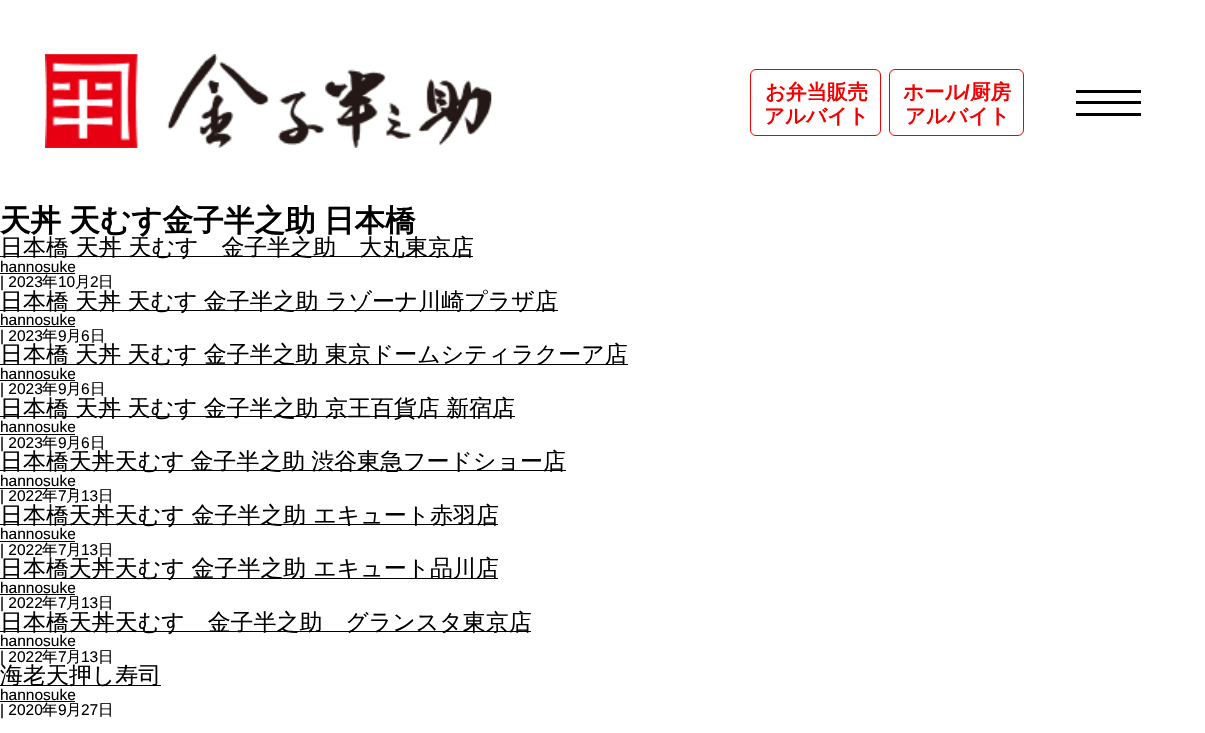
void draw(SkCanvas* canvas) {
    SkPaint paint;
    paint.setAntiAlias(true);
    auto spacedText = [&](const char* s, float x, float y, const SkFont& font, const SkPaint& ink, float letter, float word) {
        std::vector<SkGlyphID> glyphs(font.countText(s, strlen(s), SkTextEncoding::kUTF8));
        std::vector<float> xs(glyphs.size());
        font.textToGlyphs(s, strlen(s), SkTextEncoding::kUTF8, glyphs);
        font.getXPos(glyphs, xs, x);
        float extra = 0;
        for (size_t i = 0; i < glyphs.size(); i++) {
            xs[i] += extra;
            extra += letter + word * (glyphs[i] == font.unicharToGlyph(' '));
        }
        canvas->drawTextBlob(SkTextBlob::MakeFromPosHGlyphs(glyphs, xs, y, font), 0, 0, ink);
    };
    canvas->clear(0xFFFFFFFF);
    canvas->drawImageRect(SkImages::DeferredFromEncodedData(SkData::MakeFromFileName("img1.png")), SkRect::MakeXYWH(45, 54, 447, 94), SkSamplingOptions());
    paint.setStyle(SkPaint::kStroke_Style);
    paint.setStrokeWidth(1);
    paint.setColor(0xFFF50000);
    canvas->drawRoundRect(SkRect::MakeXYWH(750.5f, 69.5f, 130, 66), 5.5f, 5.5f, paint);
    SkFont font1(fontMgr->matchFamilyStyle("WenQuanYi Zen Hei", SkFontStyle::Bold()), 20.5f);
    font1.setSubpixel(true);
    paint.setStyle(SkPaint::kFill_Style);
    canvas->drawString("お弁当販売", 765, 99, font1, paint);
    canvas->drawString("アルバイト", 764, 123, font1, paint);
    paint.setStyle(SkPaint::kStroke_Style);
    canvas->drawRoundRect(SkRect::MakeXYWH(889.5f, 69.5f, 134, 66), 5.5f, 5.5f, paint);
    paint.setStyle(SkPaint::kFill_Style);
    canvas->drawString("ホール", 903, 99, font1, paint);
    SkFont font2(fontMgr->matchFamilyStyle("Liberation Sans", SkFontStyle::Bold()), 20.5f);
    font2.setSubpixel(true);
    canvas->drawString("/", 964, 99, font2, paint);
    canvas->drawString("厨房", 970, 99, font1, paint);
    canvas->drawString("アルバイト", 905, 123, font1, paint);
    paint.setColor(0xFF000000);
    canvas->drawRect(SkRect::MakeXYWH(1076, 90, 65, 3), paint);
    canvas->drawRect(SkRect::MakeXYWH(1076, 101, 65, 3), paint);
    canvas->drawRect(SkRect::MakeXYWH(1076, 113, 65, 3), paint);
    SkFont font3(fontMgr->matchFamilyStyle("WenQuanYi Zen Hei", SkFontStyle::Bold()), 30.6f);
    font3.setSubpixel(true);
    spacedText("天丼 天むす金子半之助 日本橋", 0, 231, font3, paint, 0, -1);
    canvas->drawRect(SkRect::MakeXYWH(0, 256, 473, 1), paint);
    SkFont font4(fontMgr->matchFamilyStyle("WenQuanYi Zen Hei", SkFontStyle(500, SkFontStyle::kNormal_Width, SkFontStyle::kUpright_Slant)), 22.95f);
    font4.setSubpixel(true);
    canvas->drawString("日本橋 天丼 天むす　金子半之助　大丸東京店", 0, 255, font4, paint);
    SkFont font5(fontMgr->matchFamilyStyle("Liberation Sans", SkFontStyle::Normal()), 15.5f);
    font5.setSubpixel(true);
    canvas->drawString("hannosuke", 0, 272, font5, paint);
    canvas->drawRect(SkRect::MakeXYWH(0, 273, 75, 1), paint);
    canvas->drawString("| 2023", 0, 287, font5, paint);
    SkFont font6(fontMgr->matchFamilyStyle("WenQuanYi Zen Hei", SkFontStyle(500, SkFontStyle::kNormal_Width, SkFontStyle::kUpright_Slant)), 15.5f);
    font6.setSubpixel(true);
    canvas->drawString("年", 42, 287, font6, paint);
    canvas->drawString("10", 58, 287, font5, paint);
    canvas->drawString("月", 75, 287, font6, paint);
    canvas->drawString("2", 90, 287, font5, paint);
    canvas->drawString("日", 98, 287, font6, paint);
    canvas->drawRect(SkRect::MakeXYWH(0, 310, 558, 1), paint);
    spacedText("日本橋 天丼 天むす 金子半之助 ラゾーナ川崎プラザ店", 0, 309, font4, paint, 0, -0.5f);
    canvas->drawString("hannosuke", 0, 325, font5, paint);
    canvas->drawRect(SkRect::MakeXYWH(0, 326, 75, 1), paint);
    canvas->drawString("| 2023", 0, 341, font5, paint);
    canvas->drawString("年", 42, 341, font6, paint);
    canvas->drawString("9", 58, 341, font5, paint);
    canvas->drawString("月", 66, 341, font6, paint);
    canvas->drawString("6", 81, 341, font5, paint);
    canvas->drawString("日", 90, 341, font6, paint);
    canvas->drawRect(SkRect::MakeXYWH(0, 364, 628, 1), paint);
    spacedText("日本橋 天丼 天むす 金子半之助 東京ドームシティラクーア店", 0, 362, font4, paint, 0, -0.5f);
    canvas->drawString("hannosuke", 0, 379, font5, paint);
    canvas->drawRect(SkRect::MakeXYWH(0, 380, 75, 1), paint);
    canvas->drawString("| 2023", 0, 394, font5, paint);
    canvas->drawString("年", 42, 394, font6, paint);
    canvas->drawString("9", 58, 394, font5, paint);
    canvas->drawString("月", 66, 394, font6, paint);
    canvas->drawString("6", 81, 394, font5, paint);
    canvas->drawString("日", 90, 394, font6, paint);
    canvas->drawRect(SkRect::MakeXYWH(0, 416, 515, 1), paint);
    spacedText("日本橋 天丼 天むす 金子半之助 京王百貨店 新宿店", 0, 416, font4, paint, 0, -0.5f);
    canvas->drawString("hannosuke", 0, 432, font5, paint);
    canvas->drawRect(SkRect::MakeXYWH(0, 434, 75, 1), paint);
    canvas->drawString("| 2023", 0, 448, font5, paint);
    canvas->drawString("年", 42, 448, font6, paint);
    canvas->drawString("9", 58, 448, font5, paint);
    canvas->drawString("月", 66, 448, font6, paint);
    canvas->drawString("6", 81, 448, font5, paint);
    canvas->drawString("日", 90, 448, font6, paint);
    canvas->drawRect(SkRect::MakeXYWH(0, 470, 566, 1), paint);
    spacedText("日本橋天丼天むす 金子半之助 渋谷東急フードショー店", 0, 469, font4, paint, 0, -1);
    canvas->drawString("hannosuke", 0, 486, font5, paint);
    canvas->drawRect(SkRect::MakeXYWH(0, 488, 75, 1), paint);
    canvas->drawString("| 2022", 0, 501, font5, paint);
    canvas->drawString("年", 42, 501, font6, paint);
    canvas->drawString("7", 58, 501, font5, paint);
    canvas->drawString("月", 66, 501, font6, paint);
    canvas->drawString("13", 81, 501, font5, paint);
    canvas->drawString("日", 98, 501, font6, paint);
    canvas->drawRect(SkRect::MakeXYWH(0, 524, 498, 1), paint);
    canvas->drawString("日本橋天丼天むす 金子半之助 エキュート赤羽店", 0, 523, font4, paint);
    canvas->drawString("hannosuke", 0, 539, font5, paint);
    canvas->drawRect(SkRect::MakeXYWH(0, 541, 75, 1), paint);
    canvas->drawString("| 2022", 0, 555, font5, paint);
    canvas->drawString("年", 42, 555, font6, paint);
    canvas->drawString("7", 58, 555, font5, paint);
    canvas->drawString("月", 66, 555, font6, paint);
    canvas->drawString("13", 81, 555, font5, paint);
    canvas->drawString("日", 98, 555, font6, paint);
    canvas->drawRect(SkRect::MakeXYWH(0, 578, 498, 1), paint);
    canvas->drawString("日本橋天丼天むす 金子半之助 エキュート品川店", 0, 576, font4, paint);
    canvas->drawString("hannosuke", 0, 593, font5, paint);
    canvas->drawRect(SkRect::MakeXYWH(0, 594, 75, 1), paint);
    canvas->drawString("| 2022", 0, 608, font5, paint);
    canvas->drawString("年", 42, 608, font6, paint);
    canvas->drawString("7", 58, 608, font5, paint);
    canvas->drawString("月", 66, 608, font6, paint);
    canvas->drawString("13", 81, 608, font5, paint);
    canvas->drawString("日", 98, 608, font6, paint);
    canvas->drawRect(SkRect::MakeXYWH(0, 631, 531, 1), paint);
    canvas->drawString("日本橋天丼天むす　金子半之助　グランスタ東京店", 0, 630, font4, paint);
    canvas->drawString("hannosuke", 0, 646, font5, paint);
    canvas->drawRect(SkRect::MakeXYWH(0, 648, 75, 1), paint);
    canvas->drawString("| 2022", 0, 662, font5, paint);
    canvas->drawString("年", 42, 662, font6, paint);
    canvas->drawString("7", 58, 662, font5, paint);
    canvas->drawString("月", 66, 662, font6, paint);
    canvas->drawString("13", 81, 662, font5, paint);
    canvas->drawString("日", 98, 662, font6, paint);
    canvas->drawRect(SkRect::MakeXYWH(0, 685, 161, 1), paint);
    canvas->drawString("海老天押し寿司", 0, 683, font4, paint);
    canvas->drawString("hannosuke", 0, 700, font5, paint);
    canvas->drawRect(SkRect::MakeXYWH(0, 701, 75, 1), paint);
    canvas->drawString("| 2020", 0, 715, font5, paint);
    canvas->drawString("年", 42, 715, font6, paint);
    canvas->drawString("9", 58, 715, font5, paint);
    canvas->drawString("月", 66, 715, font6, paint);
    canvas->drawString("27", 81, 715, font5, paint);
    canvas->drawString("日", 98, 715, font6, paint);
}
